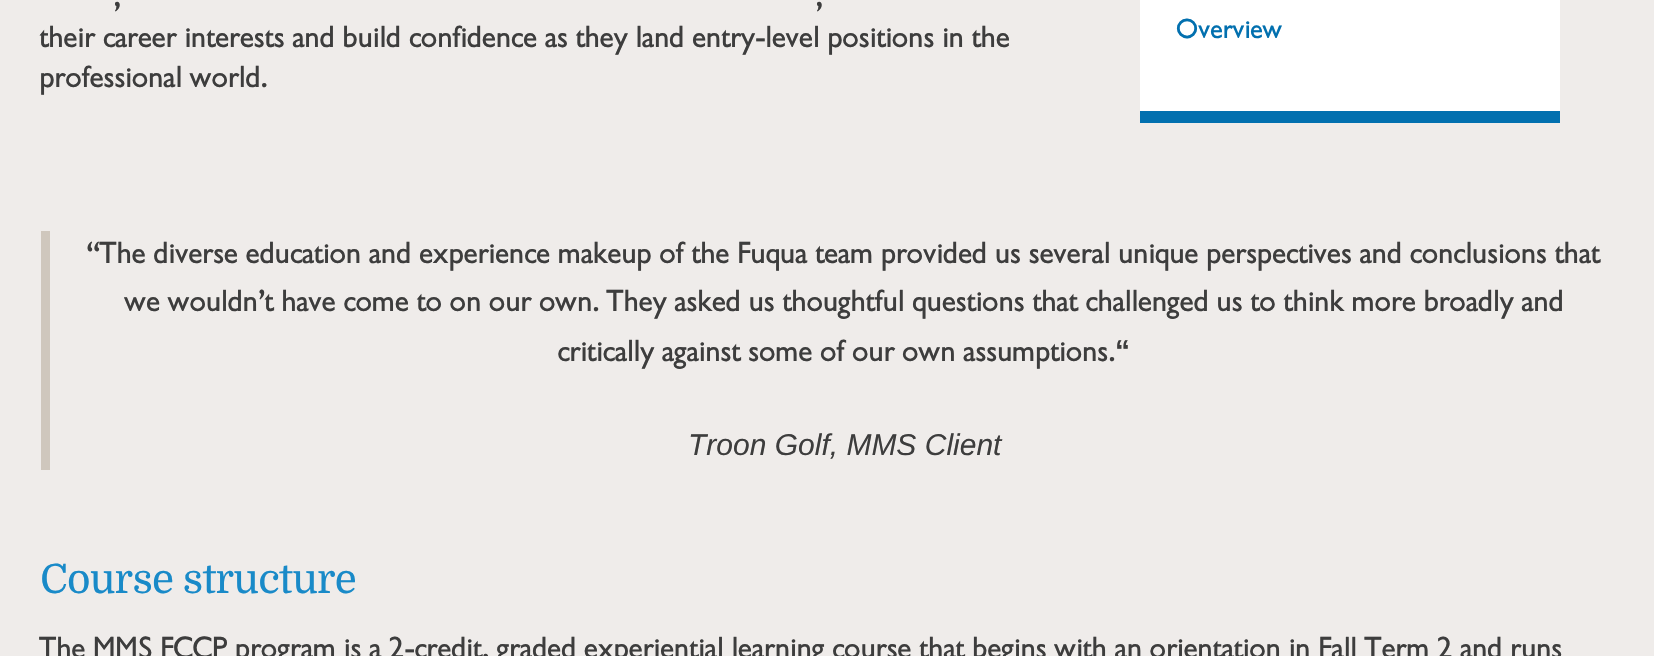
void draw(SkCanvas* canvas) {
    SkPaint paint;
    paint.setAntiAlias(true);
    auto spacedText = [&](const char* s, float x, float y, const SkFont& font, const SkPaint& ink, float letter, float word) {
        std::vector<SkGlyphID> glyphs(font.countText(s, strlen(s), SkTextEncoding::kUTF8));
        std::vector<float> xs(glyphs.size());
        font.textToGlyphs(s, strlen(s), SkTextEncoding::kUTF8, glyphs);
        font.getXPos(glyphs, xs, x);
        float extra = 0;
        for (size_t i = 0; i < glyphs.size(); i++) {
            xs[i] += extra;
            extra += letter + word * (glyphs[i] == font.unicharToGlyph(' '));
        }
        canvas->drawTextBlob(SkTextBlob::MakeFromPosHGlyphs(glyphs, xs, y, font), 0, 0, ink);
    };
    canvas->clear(0xFFEFECEA);
    SkFont font1(fontMgr->matchFamilyStyle("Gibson", SkFontStyle::Normal()), 30);
    font1.setSubpixel(true);
    paint.setColor(0xFF3D3D3D);
    canvas->drawString(",", 114, 6, font1, paint);
    canvas->drawString(",", 816, 6, font1, paint);
    canvas->drawString("their career interests and build confidence as they land entry-level positions in the", 40, 47, font1, paint);
    canvas->drawString("professional world.", 40, 87, font1, paint);
    paint.setColor(0xFFFFFFFF);
    canvas->drawRect(SkRect::MakeXYWH(1140, 0, 420, 111), paint);
    paint.setColor(0xFF0270AF);
    canvas->drawRect(SkRect::MakeXYWH(1140, 111, 420, 12), paint);
    SkFont font2(fontMgr->matchFamilyStyle("Gibson", SkFontStyle::Normal()), 27);
    font2.setSubpixel(true);
    canvas->drawString("Overview", 1177, 38, font2, paint);
    paint.setColor(0xFFCFC7BD);
    canvas->drawRect(SkRect::MakeXYWH(41, 231, 9, 239), paint);
    paint.setColor(0xFF3D3D3D);
    canvas->drawString("“The diverse education and experience makeup of the Fuqua team provided us several unique perspectives and conclusions that", 87, 263, font1, paint);
    canvas->drawString("we wouldn’t have come to on our own. They asked us thoughtful questions that challenged us to think more broadly and", 125, 311, font1, paint);
    canvas->drawString("critically against some of our own assumptions.", 558, 361, font1, paint);
    SkFont font3(fontMgr->matchFamilyStyle("Liberation Sans", SkFontStyle::Bold()), 30);
    font3.setSubpixel(true);
    canvas->drawString("“", 1115, 361, font3, paint);
    SkFont font4(fontMgr->matchFamilyStyle("Liberation Sans", SkFontStyle::Italic()), 30);
    font4.setSubpixel(true);
    canvas->drawString("Troon Golf, MMS Client", 688, 455, font4, paint);
    SkFont font5(fontMgr->matchFamilyStyle("Domine", SkFontStyle::Normal()), 40.5f);
    font5.setSubpixel(true);
    paint.setColor(0xFF198AC8);
    spacedText("Course structure", 40, 593, font5, paint, -0.75f, 0);
    paint.setColor(0xFF3D3D3D);
    canvas->drawString("The MMS FCCP program is a 2-credit, graded experiential learning course that begins with an orientation in Fall Term 2 and runs", 40, 658, font1, paint);
}
